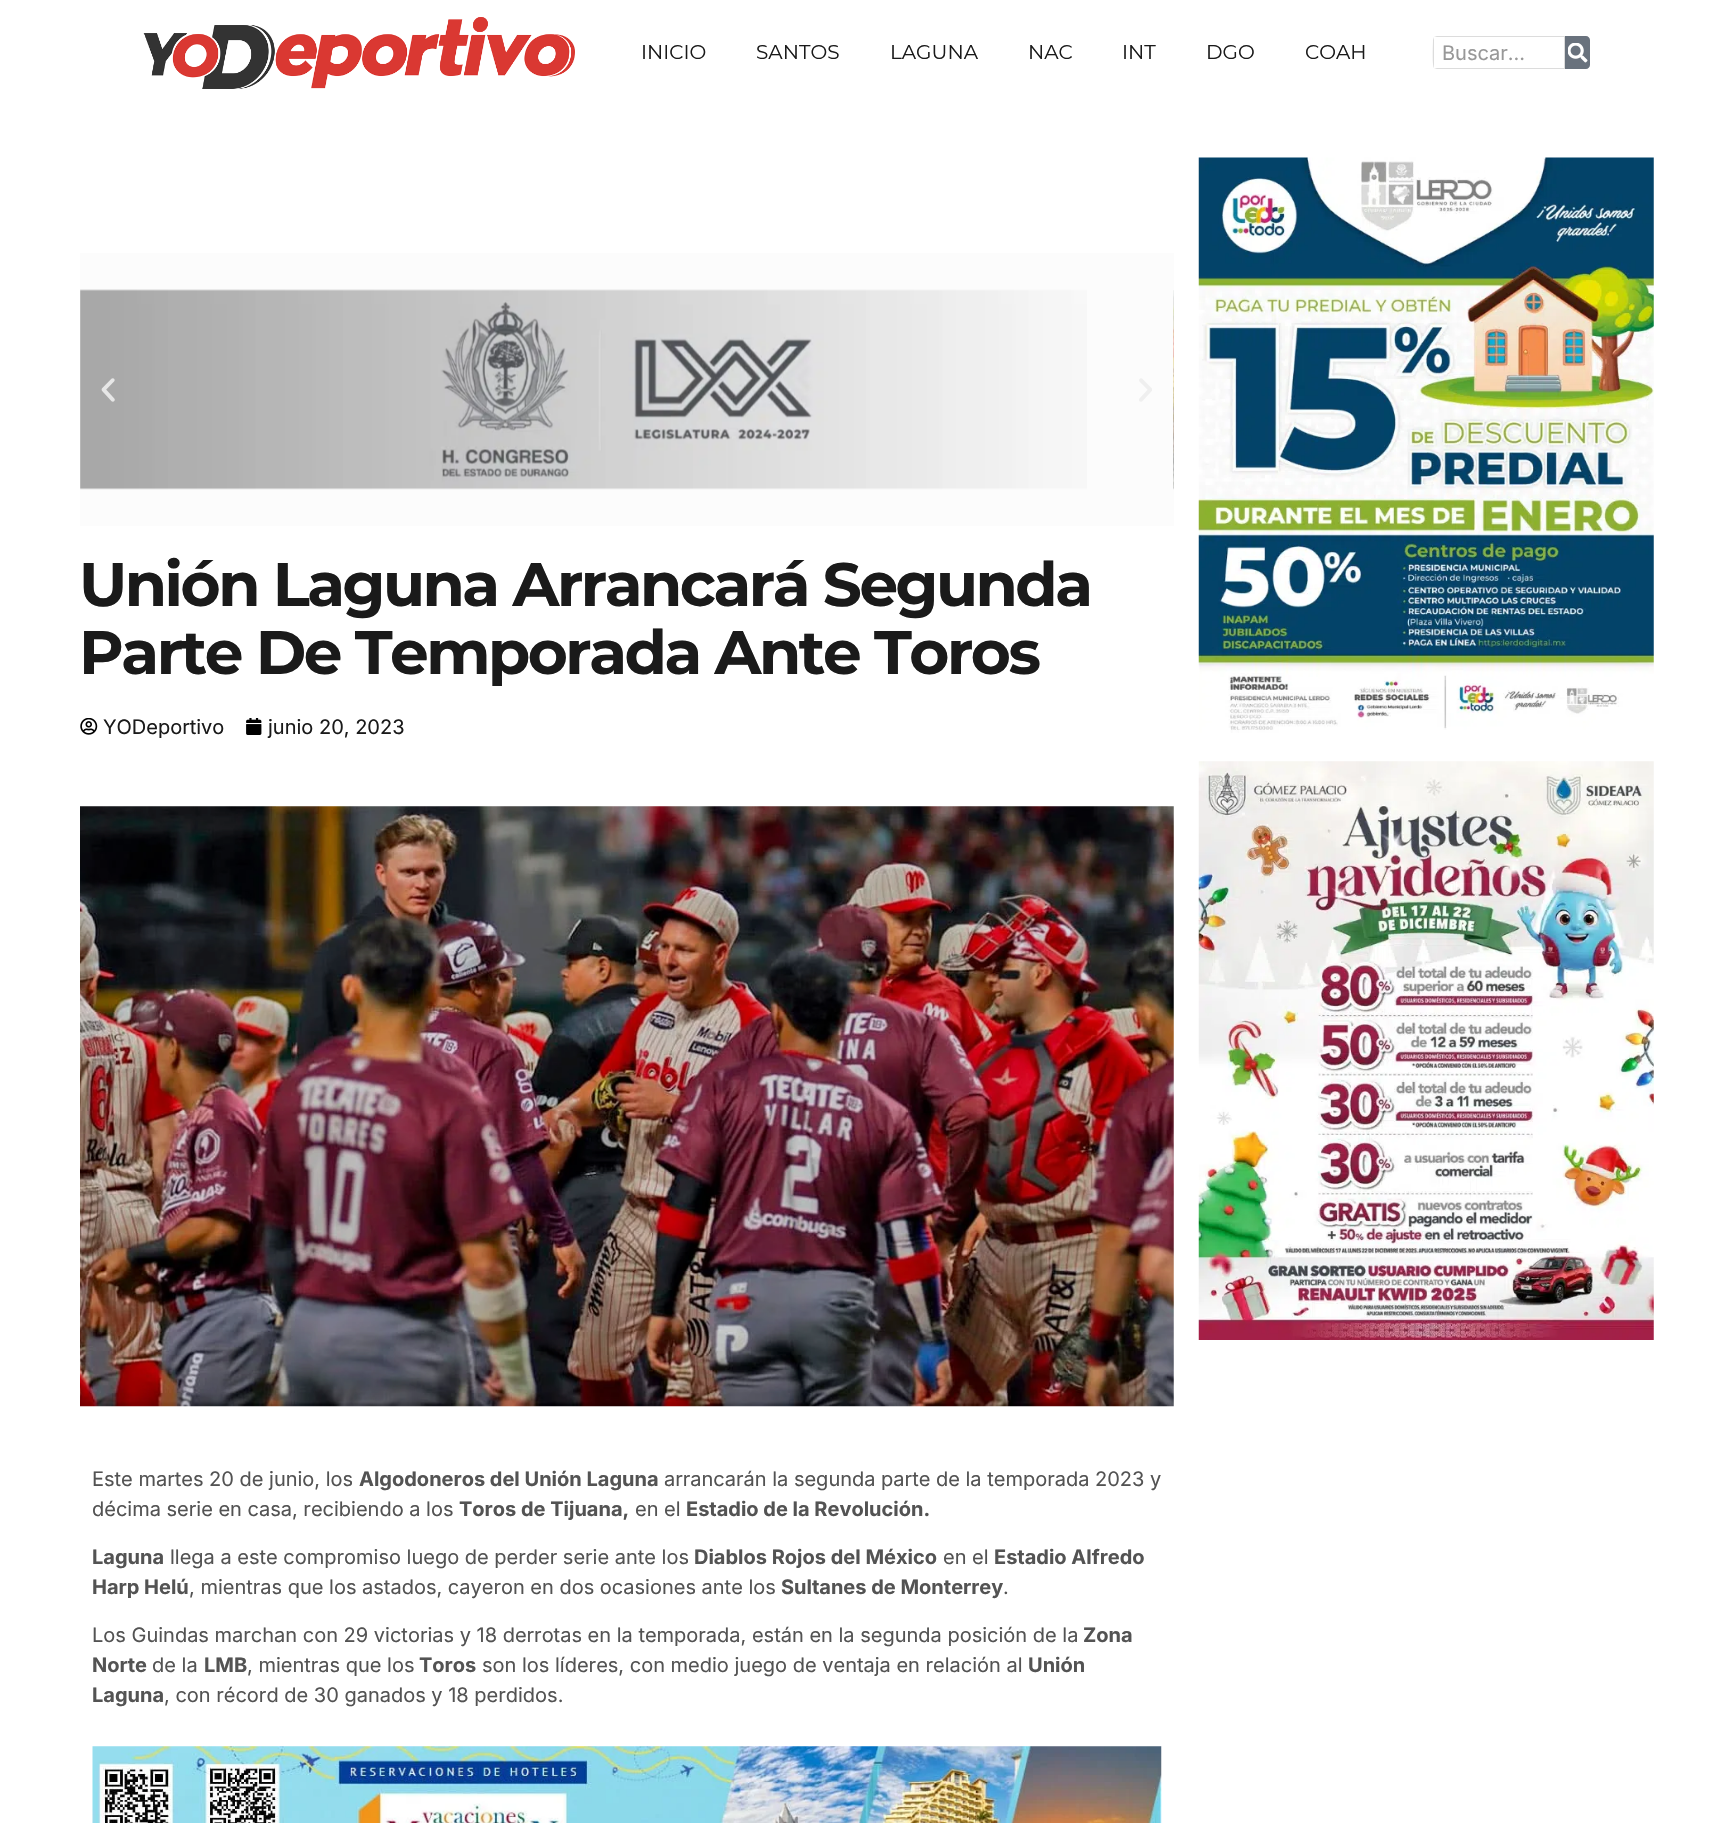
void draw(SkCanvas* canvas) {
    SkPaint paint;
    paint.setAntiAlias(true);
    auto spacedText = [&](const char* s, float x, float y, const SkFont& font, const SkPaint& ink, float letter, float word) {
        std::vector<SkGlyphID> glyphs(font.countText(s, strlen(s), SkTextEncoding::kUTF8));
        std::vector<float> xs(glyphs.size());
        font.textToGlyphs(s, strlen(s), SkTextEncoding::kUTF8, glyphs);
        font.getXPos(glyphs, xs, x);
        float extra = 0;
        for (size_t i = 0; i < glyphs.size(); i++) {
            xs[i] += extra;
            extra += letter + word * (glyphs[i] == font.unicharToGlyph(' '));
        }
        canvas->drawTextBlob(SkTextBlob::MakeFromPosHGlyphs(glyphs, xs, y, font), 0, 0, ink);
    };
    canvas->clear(0xFFFFFFFF);
    canvas->drawImageRect(SkImages::DeferredFromEncodedData(SkData::MakeFromFileName("img1.png")), SkRect::MakeXYWH(143, 17, 432, 72), SkSamplingOptions());
    SkFont font1(fontMgr->matchFamilyStyle("Montserrat", SkFontStyle::Normal()), 20);
    font1.setSubpixel(true);
    paint.setColor(0xFF1A1A1A);
    canvas->drawString("INICIO", 641, 59, font1, paint);
    canvas->drawString("SANTOS", 756, 59, font1, paint);
    canvas->drawString("LAGUNA", 890, 59, font1, paint);
    canvas->drawString("NAC", 1028, 59, font1, paint);
    canvas->drawString("INT", 1122, 59, font1, paint);
    canvas->drawString("DGO", 1206, 59, font1, paint);
    canvas->drawString("COAH", 1305, 59, font1, paint);
    paint.setColor(0xFFDCDCDC);
    canvas->drawPath(SkPathBuilder(SkPathFillType::kEvenOdd).moveTo(1433, 40).cubicTo(1433, 44, 1432, 65, 1434, 68).lineTo(1434, 37).close().moveTo(1437, 36).lineTo(1434, 37).lineTo(1564, 37).lineTo(1564, 68).lineTo(1434, 68).lineTo(1437, 69).lineTo(1565, 69).lineTo(1565, 36).close().detach(), paint);
    SkFont font2(fontMgr->matchFamilyStyle("Inter", SkFontStyle::Normal()), 20);
    font2.setSubpixel(true);
    paint.setColor(0xFF989898);
    canvas->drawString("Buscar...", 1442, 60, font2, paint);
    paint.setColor(0xFF69727D);
    canvas->drawPath(SkPathBuilder().moveTo(1565, 36).lineTo(1586, 36).cubicTo(1588, 36, 1590, 38, 1590, 40).lineTo(1590, 65).cubicTo(1590, 67, 1588, 69, 1586, 69).lineTo(1565, 69).close().detach(), paint);
    canvas->drawImageRect(SkImages::DeferredFromEncodedData(SkData::MakeFromFileName("img2.png")), SkRect::MakeXYWH(1568, 43, 20, 20), SkSamplingOptions());
    paint.setColor(0xFFFCFCFC);
    canvas->drawRect(SkRect::MakeXYWH(80, 253, 1094, 273), paint);
    canvas->drawImageRect(SkImages::DeferredFromEncodedData(SkData::MakeFromFileName("img3.png")), SkRect::MakeXYWH(80, 289, 1007, 201), SkSamplingOptions());
    canvas->drawImageRect(SkImages::DeferredFromEncodedData(SkData::MakeFromFileName("img4.png")), SkRect::MakeXYWH(1173, 290, 1, 200), SkSamplingOptions());
    canvas->drawImageRect(SkImages::DeferredFromEncodedData(SkData::MakeFromFileName("img5.png")), SkRect::MakeXYWH(101, 378, 14, 24), SkSamplingOptions());
    canvas->drawImageRect(SkImages::DeferredFromEncodedData(SkData::MakeFromFileName("img6.png")), SkRect::MakeXYWH(1139, 378, 13, 24), SkSamplingOptions());
    SkFont font3(fontMgr->matchFamilyStyle("Montserrat", SkFontStyle::Bold()), 61.25f);
    font3.setSubpixel(true);
    paint.setColor(0xFF1A1A1A);
    spacedText("Unión Laguna Arrancará Segunda", 79, 606, font3, paint, -2.5f, 0);
    spacedText("Parte De Temporada Ante Toros", 79, 674, font3, paint, -2.5f, 0);
    canvas->drawImageRect(SkImages::DeferredFromEncodedData(SkData::MakeFromFileName("img7.png")), SkRect::MakeXYWH(80, 718, 18, 17), SkSamplingOptions());
    canvas->drawString("YODeportivo", 103, 734, font2, paint);
    canvas->drawImageRect(SkImages::DeferredFromEncodedData(SkData::MakeFromFileName("img8.png")), SkRect::MakeXYWH(246, 718, 16, 17), SkSamplingOptions());
    canvas->drawString("junio 20, 2023", 268, 734, font2, paint);
    canvas->drawImageRect(SkImages::DeferredFromEncodedData(SkData::MakeFromFileName("img9.png")), SkRect::MakeXYWH(80, 806, 1094, 601), SkSamplingOptions());
    paint.setColor(0xFF535353);
    canvas->drawString("Este martes 20 de junio, los", 92, 1486, font2, paint);
    SkFont font4(fontMgr->matchFamilyStyle("Inter", SkFontStyle::Bold()), 20);
    font4.setSubpixel(true);
    canvas->drawString("Algodoneros del Unión Laguna", 359, 1486, font4, paint);
    canvas->drawString("arrancarán la segunda parte de la temporada 2023 y", 664, 1486, font2, paint);
    canvas->drawString("décima serie en casa, recibiendo a los", 92, 1516, font2, paint);
    canvas->drawString("Toros de Tijuana,", 459, 1516, font4, paint);
    canvas->drawString("en el", 635, 1516, font2, paint);
    canvas->drawString("Estadio de la Revolución.", 686, 1516, font4, paint);
    canvas->drawString("Laguna", 92, 1564, font4, paint);
    canvas->drawString("llega a este compromiso luego de perder serie ante los", 170, 1564, font2, paint);
    canvas->drawString("Diablos Rojos del México", 694, 1564, font4, paint);
    canvas->drawString("en el", 943, 1564, font2, paint);
    canvas->drawString("Estadio Alfredo", 994, 1564, font4, paint);
    canvas->drawString("Harp Helú", 92, 1594, font4, paint);
    canvas->drawString(", mientras que los astados, cayeron en dos ocasiones ante los", 189, 1594, font2, paint);
    canvas->drawString("Sultanes de Monterrey", 781, 1594, font4, paint);
    canvas->drawString(".", 1003, 1594, font2, paint);
    canvas->drawString("Los Guindas marchan con 29 victorias y 18 derrotas en la temporada, están en la segunda posición de la", 92, 1642, font2, paint);
    canvas->drawString("Zona", 1083, 1642, font4, paint);
    canvas->drawString("Norte", 92, 1672, font4, paint);
    canvas->drawString("de la", 152, 1672, font2, paint);
    canvas->drawString("LMB", 204, 1672, font4, paint);
    canvas->drawString(", mientras que los", 247, 1672, font2, paint);
    canvas->drawString("Toros", 419, 1672, font4, paint);
    canvas->drawString("son los líderes, con medio juego de ventaja en relación al", 482, 1672, font2, paint);
    canvas->drawString("Unión", 1028, 1672, font4, paint);
    canvas->drawString("Laguna", 92, 1702, font4, paint);
    canvas->drawString(", con récord de 30 ganados y 18 perdidos.", 164, 1702, font2, paint);
    canvas->drawImageRect(SkImages::DeferredFromEncodedData(SkData::MakeFromFileName("img10.png")), SkRect::MakeXYWH(92, 1746, 1070, 77), SkSamplingOptions());
    canvas->drawImageRect(SkImages::DeferredFromEncodedData(SkData::MakeFromFileName("img11.png")), SkRect::MakeXYWH(1198, 157, 456, 576), SkSamplingOptions());
    canvas->drawImageRect(SkImages::DeferredFromEncodedData(SkData::MakeFromFileName("img12.png")), SkRect::MakeXYWH(1198, 761, 456, 579), SkSamplingOptions());
}
